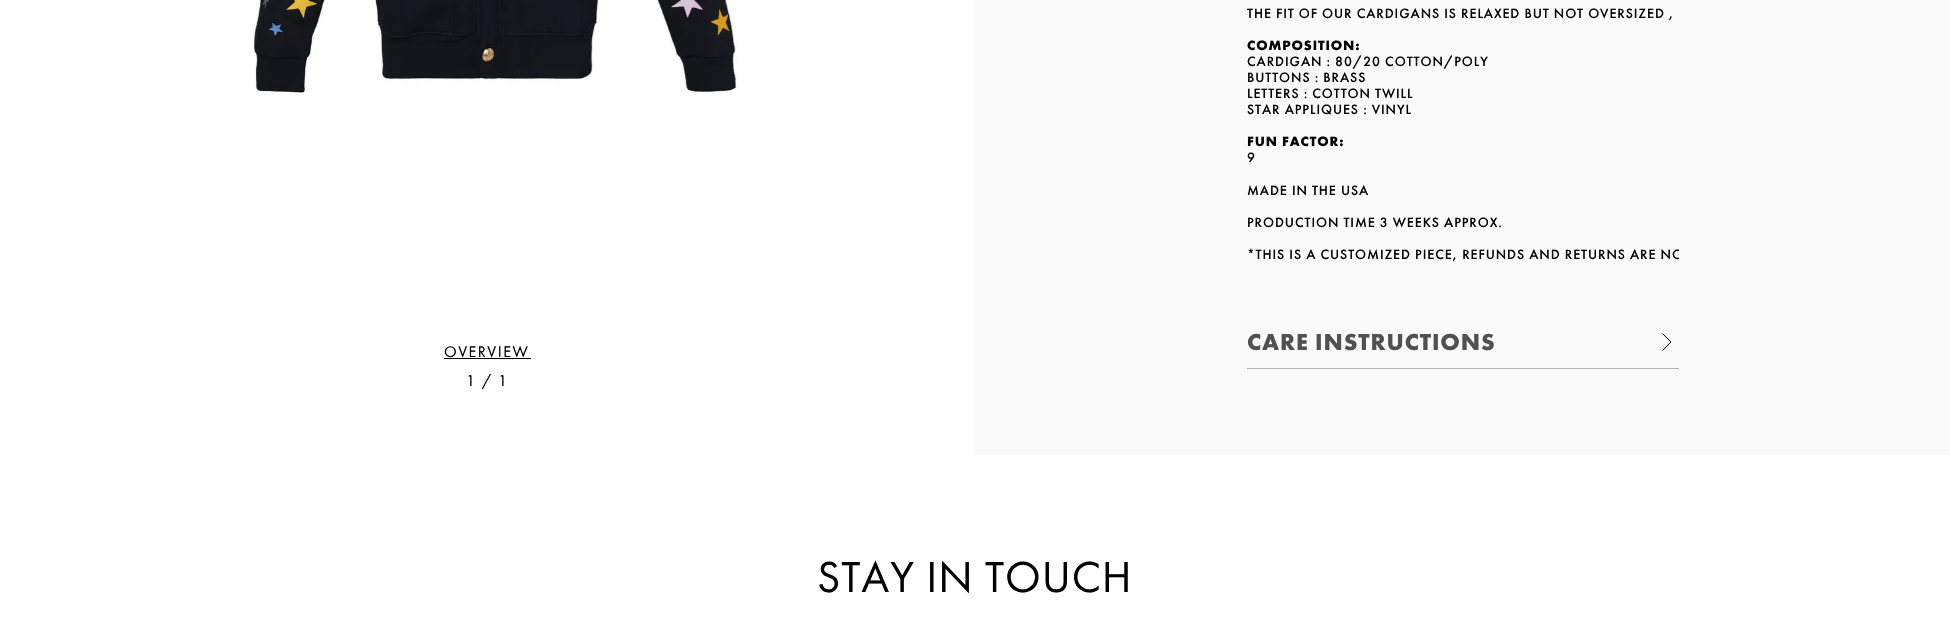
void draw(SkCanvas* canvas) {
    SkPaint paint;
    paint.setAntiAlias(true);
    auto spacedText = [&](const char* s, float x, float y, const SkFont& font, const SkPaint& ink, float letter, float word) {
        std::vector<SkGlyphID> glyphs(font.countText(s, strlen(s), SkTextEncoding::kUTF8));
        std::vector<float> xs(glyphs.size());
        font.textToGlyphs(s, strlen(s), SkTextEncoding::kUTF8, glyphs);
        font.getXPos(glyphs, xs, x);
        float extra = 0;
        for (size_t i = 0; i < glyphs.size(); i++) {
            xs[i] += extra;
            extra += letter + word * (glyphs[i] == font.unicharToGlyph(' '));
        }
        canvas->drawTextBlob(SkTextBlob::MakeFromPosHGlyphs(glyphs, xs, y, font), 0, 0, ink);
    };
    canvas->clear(0xFFFFFFFF);
    paint.setColor(0xFFFAFAFA);
    canvas->drawRect(SkRect::MakeXYWH(975, 0, 975, 455), paint);
    SkFont font1(fontMgr->matchFamilyStyle("Futura PT", SkFontStyle(500, SkFontStyle::kNormal_Width, SkFontStyle::kUpright_Slant)), 14);
    font1.setSubpixel(true);
    paint.setColor(0xFF000000);
    spacedText("THE FIT OF OUR CARDIGANS IS RELAXED BUT NOT OVERSIZED ,", 1247, 18, font1, paint, 0.9f, 0);
    SkFont font2(fontMgr->matchFamilyStyle("Futura PT", SkFontStyle::Bold()), 14);
    font2.setSubpixel(true);
    spacedText("COMPOSITION:", 1247, 50, font2, paint, 0.9f, 0);
    spacedText("CARDIGAN : 80/20 COTTON/POLY", 1247, 66, font1, paint, 0.9f, 0);
    spacedText("BUTTONS : BRASS", 1247, 82, font1, paint, 0.9f, 0);
    spacedText("LETTERS : COTTON TWILL", 1247, 98, font1, paint, 0.9f, 0);
    spacedText("STAR APPLIQUES : VINYL", 1247, 114, font1, paint, 0.9f, 0);
    spacedText("FUN FACTOR:", 1247, 146, font2, paint, 0.9f, 0);
    spacedText("9", 1247, 162, font1, paint, 0.9f, 0);
    spacedText("MADE IN THE USA", 1247, 195, font1, paint, 0.9f, 0);
    spacedText("PRODUCTION TIME 3 WEEKS APPROX.", 1247, 227, font1, paint, 0.9f, 0);
    canvas->save();
    canvas->clipRect(SkRect::MakeXYWH(1247, 0, 432, 409));
    spacedText("*THIS IS A CUSTOMIZED PIECE, REFUNDS AND RETURNS ARE NO", 1247, 259, font1, paint, 0.9f, 0);
    canvas->restore();
    paint.setColor(0xFFB5B5B5);
    canvas->drawRect(SkRect::MakeXYWH(1247, 368, 432, 1), paint);
    SkFont font3(fontMgr->matchFamilyStyle("Futura PT", SkFontStyle::Bold()), 24);
    font3.setSubpixel(true);
    paint.setColor(0xFF515151);
    spacedText("CARE INSTRUCTIONS", 1247, 350, font3, paint, 0.9f, 0);
    paint.setStyle(SkPaint::kStroke_Style);
    paint.setStrokeWidth(1);
    paint.setColor(0xFF000000);
    canvas->drawPath(SkPathBuilder().moveTo(1662.5f, 350.5f).lineTo(1671, 342).lineTo(1662.5f, 333.5f).detach(), paint);
    canvas->drawImageRect(SkImages::DeferredFromEncodedData(SkData::MakeFromFileName("img1.png")), SkRect::MakeXYWH(254, 0, 484, 94), SkSamplingOptions());
    SkFont font4(fontMgr->matchFamilyStyle("Futura PT", SkFontStyle::Normal()), 16);
    font4.setSubpixel(true);
    paint.setStyle(SkPaint::kFill_Style);
    spacedText("OVERVIEW", 444, 357, font4, paint, 1.5f, 0);
    canvas->drawRect(SkRect::MakeXYWH(444, 358, 87, 1), paint);
    spacedText("1 / 1", 466, 386, font4, paint, 1.5f, 0);
    SkFont font5(fontMgr->matchFamilyStyle("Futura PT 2", SkFontStyle::Normal()), 45);
    font5.setSubpixel(true);
    spacedText("STAY IN TOUCH", 817, 592, font5, paint, 0.9f, 0);
}
